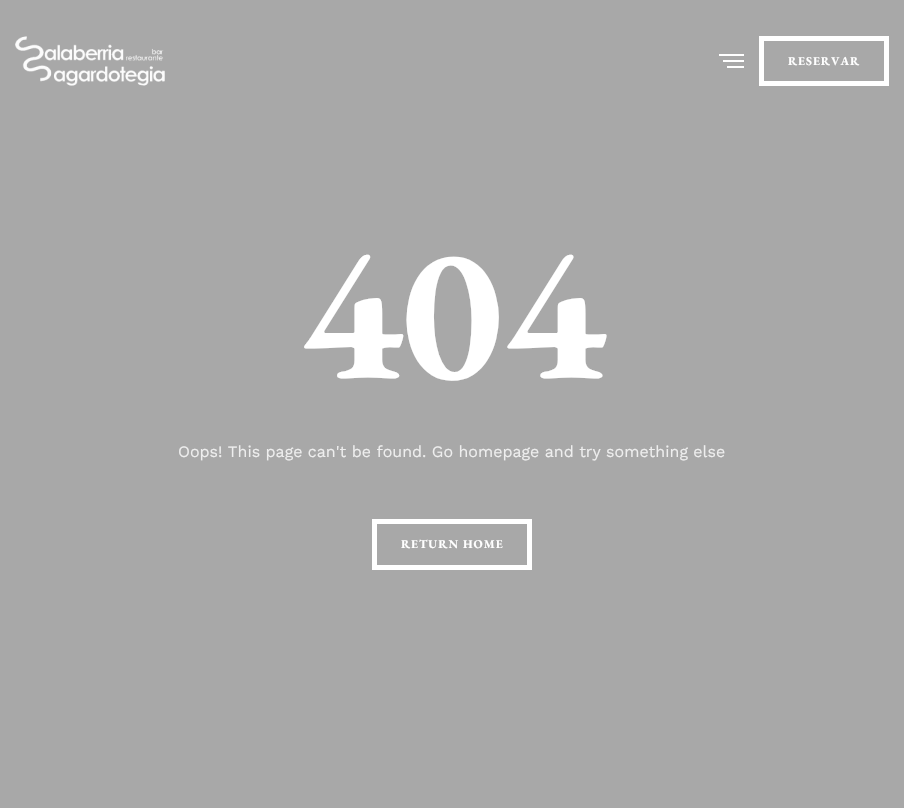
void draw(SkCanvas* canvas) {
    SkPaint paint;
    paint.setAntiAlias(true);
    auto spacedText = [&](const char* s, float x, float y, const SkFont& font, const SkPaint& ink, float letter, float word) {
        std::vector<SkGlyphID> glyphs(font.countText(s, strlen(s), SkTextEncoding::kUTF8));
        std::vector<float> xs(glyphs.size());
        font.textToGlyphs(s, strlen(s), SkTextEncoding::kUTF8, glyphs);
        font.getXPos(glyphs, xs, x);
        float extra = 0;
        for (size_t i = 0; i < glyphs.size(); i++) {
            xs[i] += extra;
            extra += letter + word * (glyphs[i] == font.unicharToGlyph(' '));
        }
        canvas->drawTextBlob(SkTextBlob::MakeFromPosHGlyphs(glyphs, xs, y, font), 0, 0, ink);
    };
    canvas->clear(0xFFA8A8A8);
    canvas->drawImageRect(SkImages::DeferredFromEncodedData(SkData::MakeFromFileName("img1.png")), SkRect::MakeXYWH(15, 36, 150, 50), SkSamplingOptions());
    paint.setColor(0xFFFFFFFF);
    canvas->drawRect(SkRect::MakeXYWH(719, 54, 25, 2), paint);
    canvas->drawRect(SkRect::MakeXYWH(723, 60, 21, 2), paint);
    canvas->drawRect(SkRect::MakeXYWH(727, 66, 17, 2), paint);
    paint.setStyle(SkPaint::kStroke_Style);
    paint.setStrokeWidth(5);
    canvas->drawRect(SkRect::MakeXYWH(761.5f, 38.5f, 125, 45), paint);
    SkFont font1(fontMgr->matchFamilyStyle("EB Garamond", SkFontStyle::Bold()), 12);
    font1.setSubpixel(true);
    paint.setStyle(SkPaint::kFill_Style);
    spacedText("RESERVAR", 788, 65, font1, paint, 1, 0);
    SkFont font2(fontMgr->matchFamilyStyle("EB Garamond", SkFontStyle::Bold()), 192);
    font2.setSubpixel(true);
    canvas->drawString("404", 300, 378, font2, paint);
    SkFont font3(fontMgr->matchFamilyStyle("Work Sans", SkFontStyle::Normal()), 16);
    font3.setSubpixel(true);
    paint.setColor(0xFFEEEEEE);
    canvas->drawString("Oops! This page can't be found. Go homepage and try something else", 178, 457, font3, paint);
    paint.setStyle(SkPaint::kStroke_Style);
    paint.setColor(0xFFFFFFFF);
    canvas->drawRect(SkRect::MakeXYWH(374.5f, 521.5f, 155, 46), paint);
    paint.setStyle(SkPaint::kFill_Style);
    spacedText("RETURN HOME", 401, 548, font1, paint, 1, 0);
}
